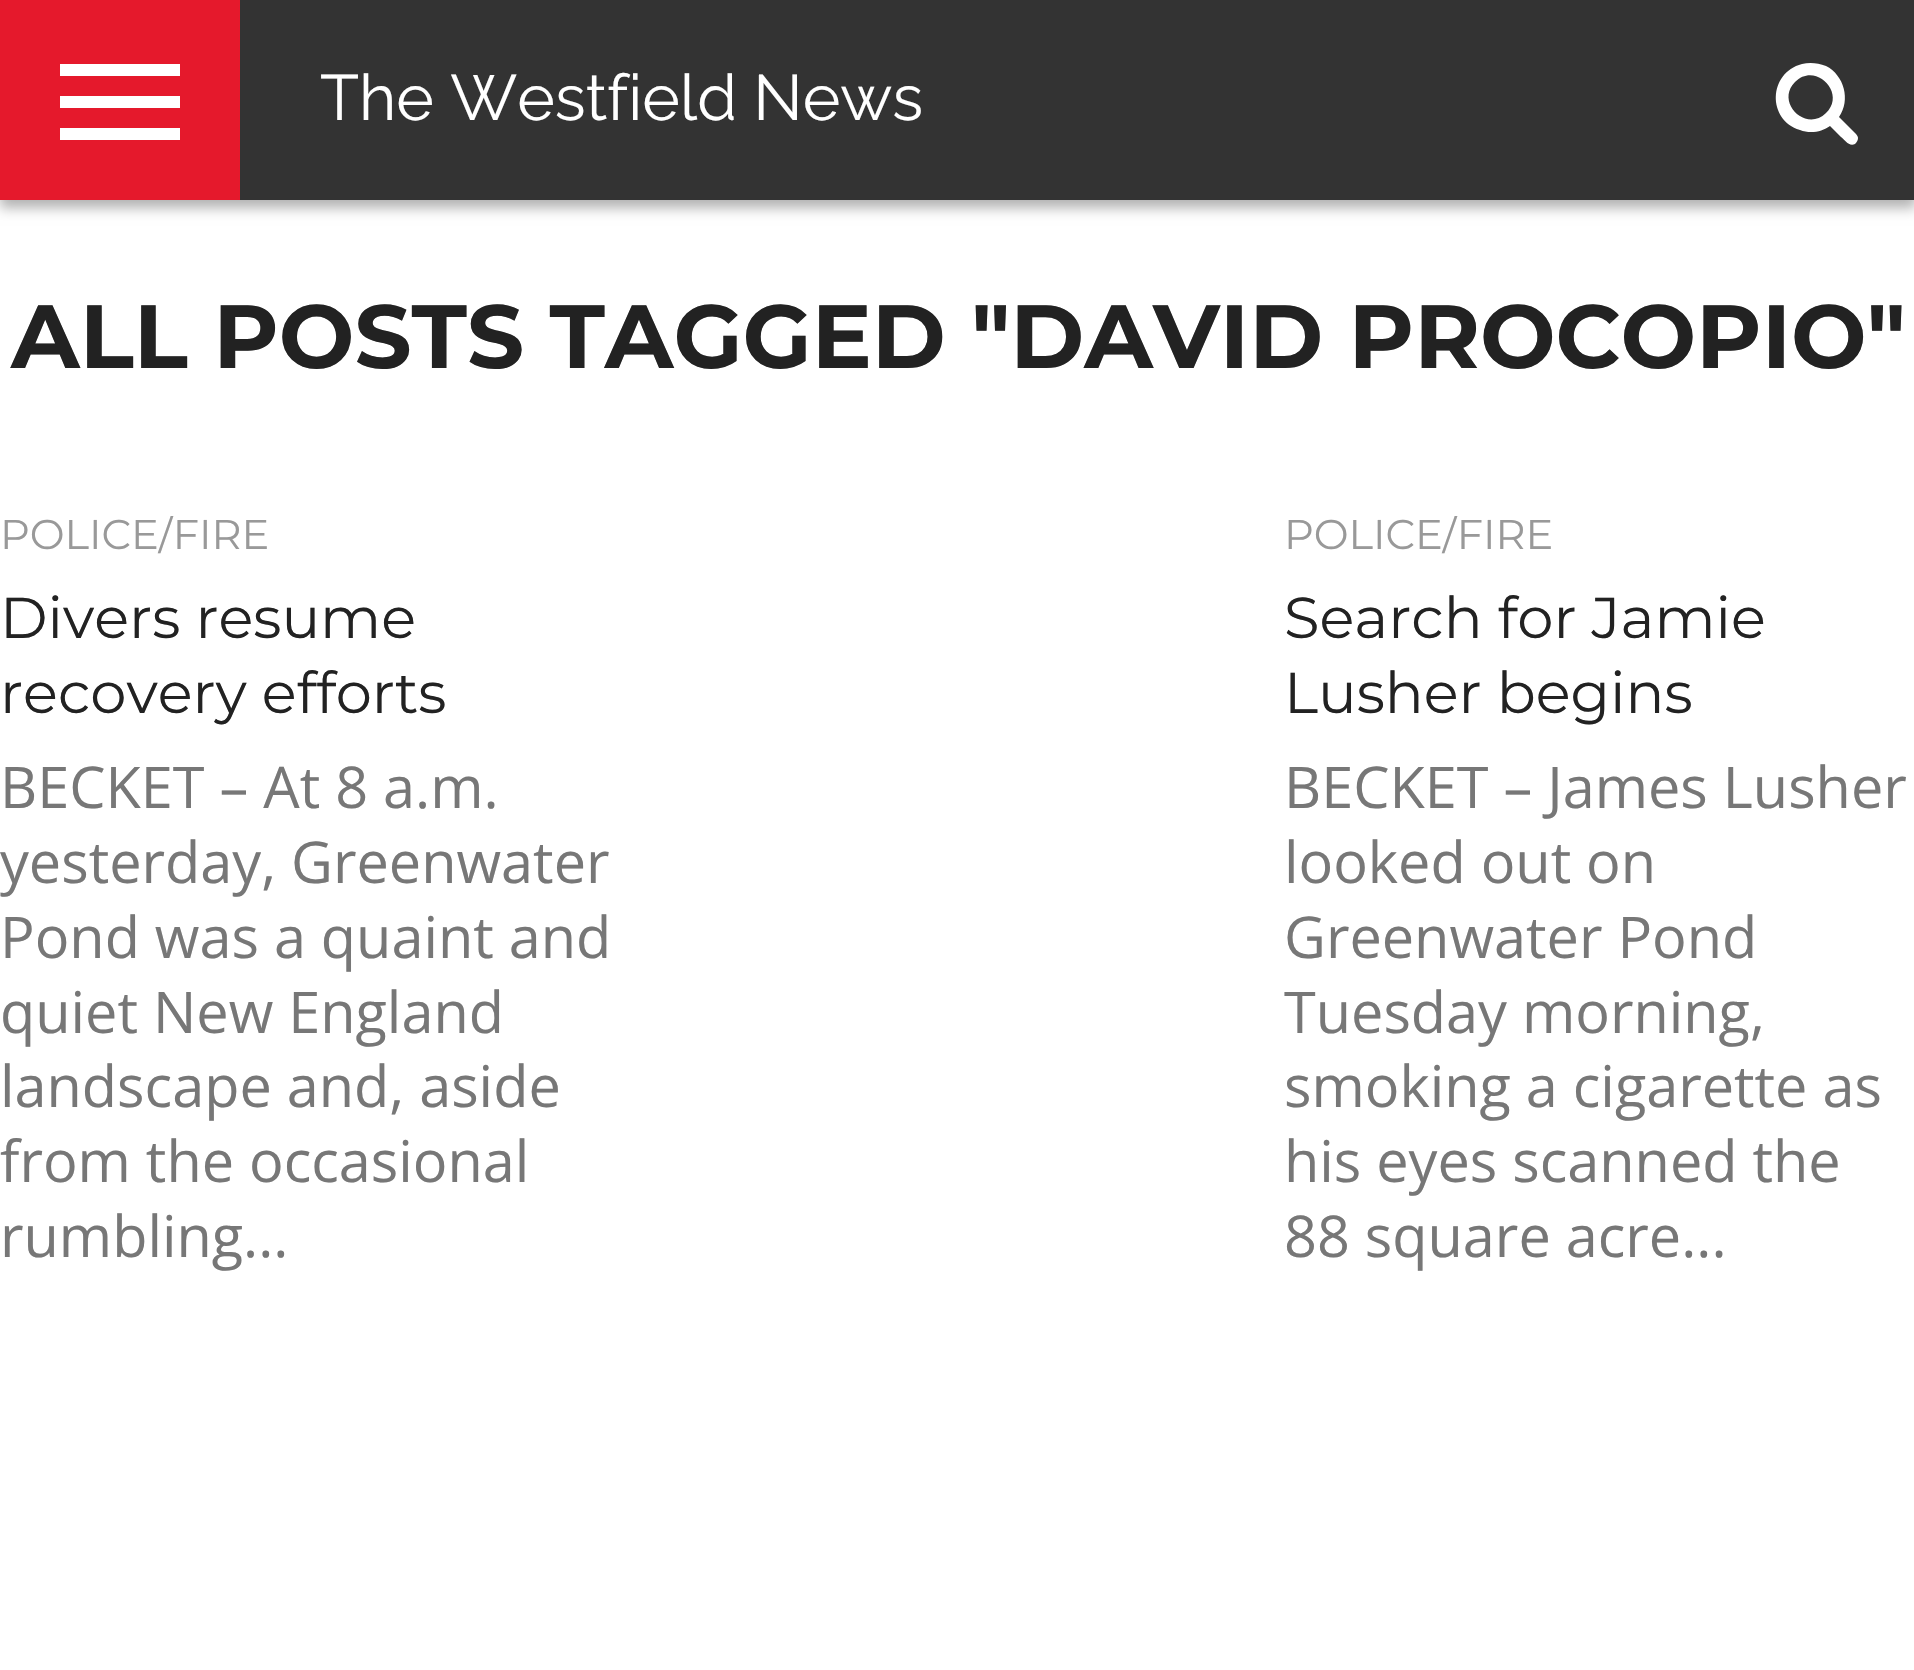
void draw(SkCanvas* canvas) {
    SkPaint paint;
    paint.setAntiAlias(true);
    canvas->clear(0xFFFFFFFF);
    paint.setColor(0x4D000000);
    paint.setMaskFilter(SkMaskFilter::MakeBlur(kNormal_SkBlurStyle, 6));
    canvas->drawRect(SkRect::MakeXYWH(0, 8, 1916, 200), paint);
    paint.setMaskFilter(nullptr);
    paint.setColor(0xFF333333);
    canvas->drawRect(SkRect::MakeXYWH(240, 0, 1674, 200), paint);
    paint.setColor(0xFFE5192C);
    canvas->drawRect(SkRect::MakeXYWH(0, 0, 240, 200), paint);
    paint.setColor(0xFFFFFFFF);
    canvas->drawRect(SkRect::MakeXYWH(60, 64, 120, 12), paint);
    canvas->drawRect(SkRect::MakeXYWH(60, 96, 120, 12), paint);
    canvas->drawRect(SkRect::MakeXYWH(60, 128, 120, 12), paint);
    SkFont font1(fontMgr->matchFamilyStyle("Raleway", SkFontStyle::Normal()), 64);
    font1.setSubpixel(true);
    canvas->drawString("The Westfield News", 320, 120, font1, paint);
    canvas->drawPath(SkPathBuilder().moveTo(1826, 113).cubicTo(1847, 93, 1815, 61, 1795, 82).cubicTo(1775, 102, 1806, 133, 1826, 113).close().moveTo(1858, 138).cubicTo(1858, 140, 1857, 142, 1855, 144).cubicTo(1849, 147, 1845, 140, 1841, 137).lineTo(1830, 126).cubicTo(1822, 132, 1810, 134, 1800, 130).cubicTo(1767, 120, 1768, 73, 1802, 64).cubicTo(1810, 62, 1818, 63, 1826, 66).cubicTo(1844, 75, 1851, 100, 1839, 117).lineTo(1856, 134).cubicTo(1857, 135, 1858, 137, 1858, 138).close().detach(), paint);
    SkFont font2(fontMgr->matchFamilyStyle("Montserrat", SkFontStyle::Bold()), 89.6f);
    font2.setSubpixel(true);
    paint.setColor(0xFF222222);
    canvas->drawString("ALL POSTS TAGGED \"DAVID PROCOPIO\"", 11, 368, font2, paint);
    canvas->save();
    canvas->clipRect(SkRect::MakeXYWH(0, 516, 632, 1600));
    SkFont font3(fontMgr->matchFamilyStyle("Montserrat", SkFontStyle::Normal()), 41.5f);
    font3.setSubpixel(true);
    paint.setColor(0xFF999999);
    canvas->drawString("POLICE/FIRE", 0, 549, font3, paint);
    canvas->restore();
    SkFont font4(fontMgr->matchFamilyStyle("Montserrat", SkFontStyle::Normal()), 57.6f);
    font4.setSubpixel(true);
    paint.setColor(0xFF222222);
    canvas->drawString("Divers resume", 0, 638, font4, paint);
    canvas->drawString("recovery efforts", 0, 713, font4, paint);
    SkFont font5(fontMgr->matchFamilyStyle("Open Sans", SkFontStyle::Normal()), 57.6f);
    font5.setSubpixel(true);
    paint.setColor(0xFF777777);
    canvas->drawString("BECKET – At 8 a.m.", 0, 808, font5, paint);
    canvas->drawString("yesterday, Greenwater", 0, 883, font5, paint);
    canvas->drawString("Pond was a quaint and", 0, 958, font5, paint);
    canvas->drawString("quiet New England", 0, 1033, font5, paint);
    canvas->drawString("landscape and, aside", 0, 1107, font5, paint);
    canvas->drawString("from the occasional", 0, 1182, font5, paint);
    canvas->drawString("rumbling...", 0, 1257, font5, paint);
    canvas->save();
    canvas->clipRect(SkRect::MakeXYWH(1284, 516, 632, 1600));
    paint.setColor(0xFF999999);
    canvas->drawString("POLICE/FIRE", 1284, 549, font3, paint);
    canvas->restore();
    paint.setColor(0xFF222222);
    canvas->drawString("Search for Jamie", 1284, 638, font4, paint);
    canvas->drawString("Lusher begins", 1284, 713, font4, paint);
    paint.setColor(0xFF777777);
    canvas->drawString("BECKET – James Lusher", 1284, 808, font5, paint);
    canvas->drawString("looked out on", 1284, 883, font5, paint);
    canvas->drawString("Greenwater Pond", 1284, 958, font5, paint);
    canvas->drawString("Tuesday morning,", 1284, 1033, font5, paint);
    canvas->drawString("smoking a cigarette as", 1284, 1107, font5, paint);
    canvas->drawString("his eyes scanned the", 1284, 1182, font5, paint);
    canvas->drawString("88 square acre...", 1284, 1257, font5, paint);
}
